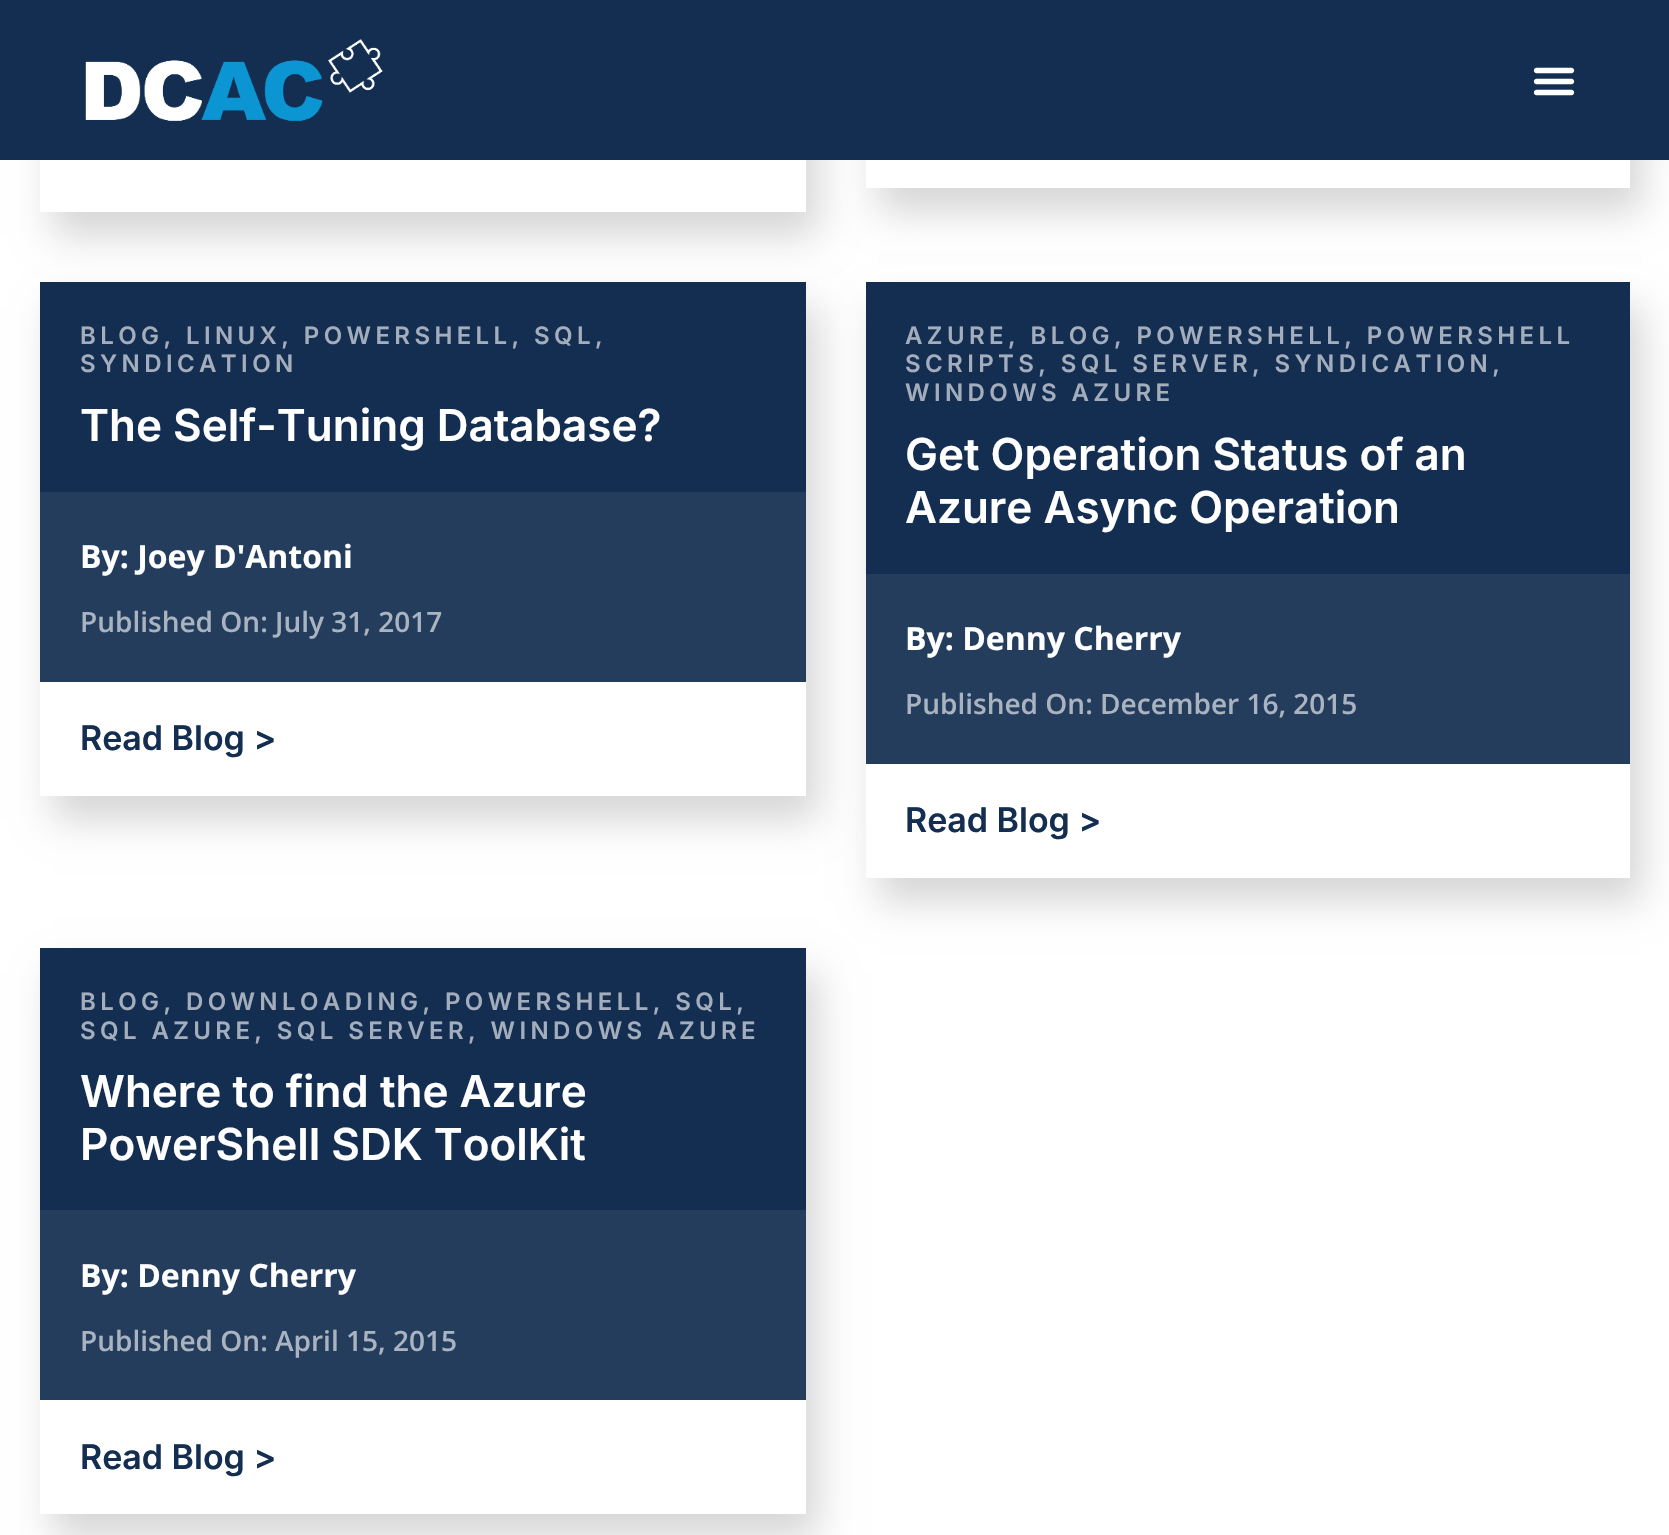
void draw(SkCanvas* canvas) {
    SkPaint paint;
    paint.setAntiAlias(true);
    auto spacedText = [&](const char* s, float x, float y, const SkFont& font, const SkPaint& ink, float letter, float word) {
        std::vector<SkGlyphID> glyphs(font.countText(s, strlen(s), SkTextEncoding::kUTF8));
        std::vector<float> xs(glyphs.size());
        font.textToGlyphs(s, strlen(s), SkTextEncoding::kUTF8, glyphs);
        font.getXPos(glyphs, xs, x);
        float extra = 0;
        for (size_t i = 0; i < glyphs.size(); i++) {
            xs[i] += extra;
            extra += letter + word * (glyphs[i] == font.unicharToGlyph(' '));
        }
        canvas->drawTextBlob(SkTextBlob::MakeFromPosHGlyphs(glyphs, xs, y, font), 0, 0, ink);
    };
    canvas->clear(0xFFFFFFFF);
    paint.setColor(0x29000000);
    paint.setMaskFilter(SkMaskFilter::MakeBlur(kNormal_SkBlurStyle, 18));
    canvas->drawRect(SkRect::MakeXYWH(52, -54, 766, 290), paint);
    paint.setMaskFilter(nullptr);
    paint.setMaskFilter(SkMaskFilter::MakeBlur(kNormal_SkBlurStyle, 18));
    canvas->drawRect(SkRect::MakeXYWH(878, -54, 764, 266), paint);
    paint.setMaskFilter(nullptr);
    paint.setColor(0xFF132E51);
    canvas->drawRect(SkRect::MakeXYWH(0, 0, 1669, 160), paint);
    canvas->drawImageRect(SkImages::DeferredFromEncodedData(SkData::MakeFromFileName("img1.png")), SkRect::MakeXYWH(85, 39, 298, 82), SkSamplingOptions());
    canvas->drawImageRect(SkImages::DeferredFromEncodedData(SkData::MakeFromFileName("img2.png")), SkRect::MakeXYWH(1533, 67, 42, 29), SkSamplingOptions());
    paint.setColor(0xFFFFFFFF);
    canvas->drawRect(SkRect::MakeXYWH(40, 160, 766, 52), paint);
    canvas->drawRect(SkRect::MakeXYWH(866, 160, 764, 28), paint);
    paint.setColor(0x29000000);
    paint.setMaskFilter(SkMaskFilter::MakeBlur(kNormal_SkBlurStyle, 18));
    canvas->drawRect(SkRect::MakeXYWH(52, 306, 766, 514), paint);
    paint.setMaskFilter(nullptr);
    paint.setColor(0xFF132E51);
    canvas->drawRect(SkRect::MakeXYWH(40, 282, 766, 210), paint);
    SkFont font1(fontMgr->matchFamilyStyle("Inter", SkFontStyle(600, SkFontStyle::kNormal_Width, SkFontStyle::kUpright_Slant)), 24);
    font1.setSubpixel(true);
    paint.setColor(0xFFA3ADBB);
    spacedText("BLOG, LINUX, POWERSHELL, SQL,", 80, 344, font1, paint, 4.4f, 0);
    spacedText("SYNDICATION", 80, 372, font1, paint, 4.4f, 0);
    SkFont font2(fontMgr->matchFamilyStyle("Inter", SkFontStyle(600, SkFontStyle::kNormal_Width, SkFontStyle::kUpright_Slant)), 44);
    font2.setSubpixel(true);
    paint.setColor(0xFFFFFFFF);
    canvas->drawString("The Self-Tuning Database?", 80, 441, font2, paint);
    paint.setColor(0xFF243D5D);
    canvas->drawRect(SkRect::MakeXYWH(40, 492, 766, 190), paint);
    SkFont font3(fontMgr->matchFamilyStyle("Open Sans", SkFontStyle::Bold()), 32);
    font3.setSubpixel(true);
    paint.setColor(0xFFFFFFFF);
    canvas->drawString("By: Joey D'Antoni", 80, 568, font3, paint);
    SkFont font4(fontMgr->matchFamilyStyle("Open Sans", SkFontStyle(600, SkFontStyle::kNormal_Width, SkFontStyle::kUpright_Slant)), 28);
    font4.setSubpixel(true);
    paint.setColor(0xFFAAB3C0);
    canvas->drawString("Published On: July 31, 2017", 80, 632, font4, paint);
    paint.setColor(0xFFFFFFFF);
    canvas->drawRect(SkRect::MakeXYWH(40, 682, 766, 114), paint);
    SkFont font5(fontMgr->matchFamilyStyle("Inter", SkFontStyle(600, SkFontStyle::kNormal_Width, SkFontStyle::kUpright_Slant)), 34);
    font5.setSubpixel(true);
    paint.setColor(0xFF132E51);
    canvas->drawString("Read Blog >", 80, 750, font5, paint);
    paint.setColor(0x29000000);
    paint.setMaskFilter(SkMaskFilter::MakeBlur(kNormal_SkBlurStyle, 18));
    canvas->drawRect(SkRect::MakeXYWH(878, 306, 764, 596), paint);
    paint.setMaskFilter(nullptr);
    paint.setColor(0xFF132E51);
    canvas->drawRect(SkRect::MakeXYWH(866, 282, 764, 292), paint);
    paint.setColor(0xFFA3ADBB);
    spacedText("AZURE, BLOG, POWERSHELL, POWERSHELL", 905, 344, font1, paint, 4.4f, 0);
    spacedText("SCRIPTS, SQL SERVER, SYNDICATION,", 905, 372, font1, paint, 4.4f, 0);
    spacedText("WINDOWS AZURE", 905, 401, font1, paint, 4.4f, 0);
    paint.setColor(0xFFFFFFFF);
    canvas->drawString("Get Operation Status of an", 905, 470, font2, paint);
    canvas->drawString("Azure Async Operation", 905, 523, font2, paint);
    paint.setColor(0xFF243D5D);
    canvas->drawRect(SkRect::MakeXYWH(866, 574, 764, 190), paint);
    paint.setColor(0xFFFFFFFF);
    canvas->drawString("By: Denny Cherry", 905, 650, font3, paint);
    paint.setColor(0xFFAAB3C0);
    canvas->drawString("Published On: December 16, 2015", 905, 714, font4, paint);
    paint.setColor(0xFFFFFFFF);
    canvas->drawRect(SkRect::MakeXYWH(866, 764, 764, 114), paint);
    paint.setColor(0xFF132E51);
    canvas->drawString("Read Blog >", 905, 832, font5, paint);
    paint.setColor(0x29000000);
    paint.setMaskFilter(SkMaskFilter::MakeBlur(kNormal_SkBlurStyle, 18));
    canvas->drawRect(SkRect::MakeXYWH(52, 972, 766, 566), paint);
    paint.setMaskFilter(nullptr);
    paint.setColor(0xFF132E51);
    canvas->drawRect(SkRect::MakeXYWH(40, 948, 766, 262), paint);
    paint.setColor(0xFFA3ADBB);
    spacedText("BLOG, DOWNLOADING, POWERSHELL, SQL,", 80, 1010, font1, paint, 4.4f, 0);
    spacedText("SQL AZURE, SQL SERVER, WINDOWS AZURE", 80, 1039, font1, paint, 4.4f, 0);
    paint.setColor(0xFFFFFFFF);
    canvas->drawString("Where to find the Azure", 80, 1107, font2, paint);
    canvas->drawString("PowerShell SDK ToolKit", 80, 1160, font2, paint);
    paint.setColor(0xFF243D5D);
    canvas->drawRect(SkRect::MakeXYWH(40, 1210, 766, 190), paint);
    paint.setColor(0xFFFFFFFF);
    canvas->drawString("By: Denny Cherry", 80, 1287, font3, paint);
    paint.setColor(0xFFAAB3C0);
    canvas->drawString("Published On: April 15, 2015", 80, 1351, font4, paint);
    paint.setColor(0xFFFFFFFF);
    canvas->drawRect(SkRect::MakeXYWH(40, 1400, 766, 114), paint);
    paint.setColor(0xFF132E51);
    canvas->drawString("Read Blog >", 80, 1469, font5, paint);
}
